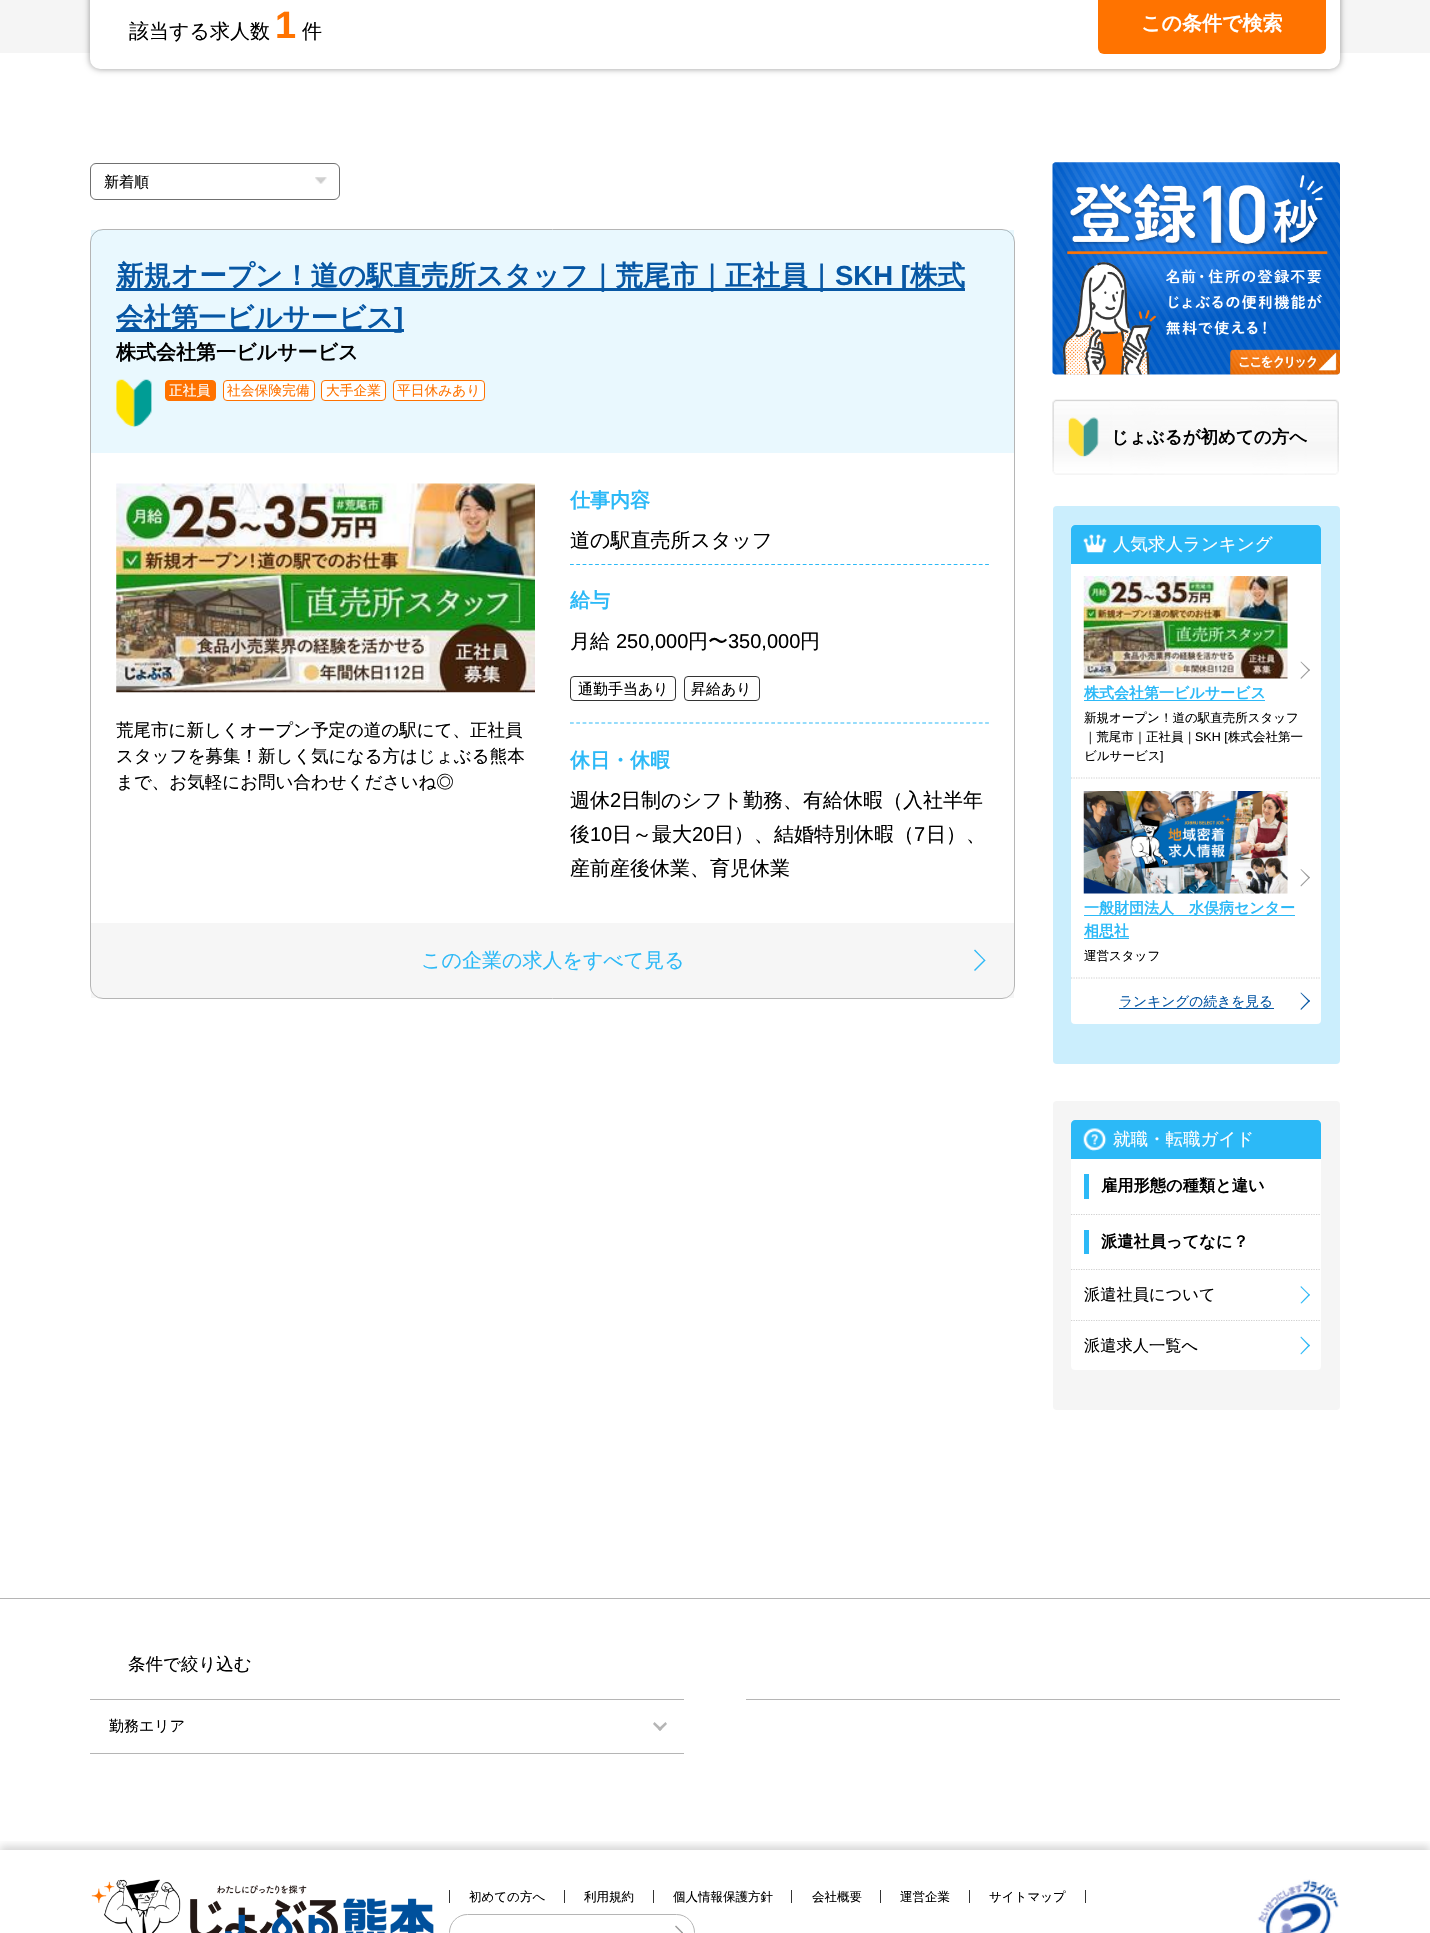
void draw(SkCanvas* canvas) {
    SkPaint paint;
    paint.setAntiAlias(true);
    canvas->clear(0xFFFFFFFF);
    paint.setColor(0xFFF5F5F5);
    canvas->drawRect(SkRect::MakeXYWH(0, 0, 1430, 53), paint);
    paint.setColor(0x66000000);
    paint.setMaskFilter(SkMaskFilter::MakeBlur(kNormal_SkBlurStyle, 3));
    canvas->drawRoundRect(SkRect::MakeXYWH(90, -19, 1250, 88), 10, 10, paint);
    paint.setMaskFilter(nullptr);
    paint.setColor(0xFFFFFFFF);
    canvas->drawRoundRect(SkRect::MakeXYWH(90, -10, 1250, 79), 10, 10, paint);
    SkFont font1(fontMgr->matchFamilyStyle("WenQuanYi Zen Hei", SkFontStyle(500, SkFontStyle::kNormal_Width, SkFontStyle::kUpright_Slant)), 20);
    font1.setSubpixel(true);
    paint.setColor(0xFF000000);
    canvas->drawString("該当する求人数", 129, 38, font1, paint);
    SkFont font2(fontMgr->matchFamilyStyle("Liberation Sans", SkFontStyle::Bold()), 38);
    font2.setSubpixel(true);
    paint.setColor(0xFFFF7300);
    canvas->drawString("1", 275, 38, font2, paint);
    paint.setColor(0xFF000000);
    canvas->drawString("件", 302, 38, font1, paint);
    paint.setColor(0xFFFF7300);
    canvas->drawRoundRect(SkRect::MakeXYWH(1098, -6, 228, 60), 6, 6, paint);
    SkFont font3(fontMgr->matchFamilyStyle("WenQuanYi Zen Hei", SkFontStyle::Bold()), 20);
    font3.setSubpixel(true);
    paint.setColor(0xFFFFFFFF);
    canvas->drawString("この条件で検索", 1141, 30, font3, paint);
    canvas->drawImageRect(SkImages::DeferredFromEncodedData(SkData::MakeFromFileName("img1.png")), SkRect::MakeXYWH(315, 177, 12, 7), SkSamplingOptions());
    paint.setStyle(SkPaint::kStroke_Style);
    paint.setStrokeWidth(1);
    paint.setColor(0xFF707070);
    canvas->drawRoundRect(SkRect::MakeXYWH(90.5f, 163.5f, 249, 36), 5.5f, 5.5f, paint);
    SkFont font4(fontMgr->matchFamilyStyle("WenQuanYi Zen Hei", SkFontStyle(500, SkFontStyle::kNormal_Width, SkFontStyle::kUpright_Slant)), 15);
    font4.setSubpixel(true);
    paint.setStyle(SkPaint::kFill_Style);
    paint.setColor(0xFF000000);
    canvas->drawString("新着順", 104, 187, font4, paint);
    paint.setStyle(SkPaint::kStroke_Style);
    paint.setColor(0xFFB5B5B5);
    canvas->drawRoundRect(SkRect::MakeXYWH(90.5f, 229.5f, 924, 769), 12.5f, 12.5f, paint);
    paint.setStyle(SkPaint::kFill_Style);
    paint.setColor(0x1A2CB9F7);
    canvas->drawRect(SkRect::MakeXYWH(91, 230, 923, 223), paint);
    paint.setColor(0xFF0757A4);
    canvas->drawRect(SkRect::MakeXYWH(116, 288, 849, 3), paint);
    SkFont font5(fontMgr->matchFamilyStyle("WenQuanYi Zen Hei", SkFontStyle::Bold()), 27.5f);
    font5.setSubpixel(true);
    canvas->drawString("新規オープン！道の駅直売所スタッフ｜荒尾市｜正社員｜", 116, 285, font5, paint);
    SkFont font6(fontMgr->matchFamilyStyle("Liberation Sans", SkFontStyle::Bold()), 27.5f);
    font6.setSubpixel(true);
    canvas->drawString("SKH [", 835, 285, font6, paint);
    canvas->drawString("株式", 910, 285, font5, paint);
    canvas->drawRect(SkRect::MakeXYWH(116, 329, 288, 3), paint);
    canvas->drawString("会社第一ビルサービス", 116, 327, font5, paint);
    canvas->drawString("]", 394, 327, font6, paint);
    paint.setColor(0xFF000000);
    canvas->drawString("株式会社第一ビルサービス", 116, 359, font3, paint);
    canvas->drawImageRect(SkImages::DeferredFromEncodedData(SkData::MakeFromFileName("img2.png")), SkRect::MakeXYWH(116, 379, 36, 48), SkSamplingOptions());
    paint.setColor(0xFFFF7200);
    canvas->drawRoundRect(SkRect::MakeXYWH(165.5f, 380.5f, 50, 20), 3.5f, 3.5f, paint);
    paint.setStyle(SkPaint::kStroke_Style);
    canvas->drawRoundRect(SkRect::MakeXYWH(165.5f, 380.5f, 50, 20), 3.5f, 3.5f, paint);
    SkFont font7(fontMgr->matchFamilyStyle("WenQuanYi Zen Hei", SkFontStyle(500, SkFontStyle::kNormal_Width, SkFontStyle::kUpright_Slant)), 13.75f);
    font7.setSubpixel(true);
    paint.setStyle(SkPaint::kFill_Style);
    paint.setColor(0xFFFFFFFF);
    canvas->drawString("正社員", 169, 395, font7, paint);
    canvas->drawRoundRect(SkRect::MakeXYWH(223.5f, 380.5f, 91, 20), 3.5f, 3.5f, paint);
    paint.setStyle(SkPaint::kStroke_Style);
    paint.setColor(0xFFFF7200);
    canvas->drawRoundRect(SkRect::MakeXYWH(223.5f, 380.5f, 91, 20), 3.5f, 3.5f, paint);
    paint.setStyle(SkPaint::kFill_Style);
    paint.setColor(0xFFFF7300);
    canvas->drawString("社会保険完備", 227, 395, font7, paint);
    paint.setColor(0xFFFFFFFF);
    canvas->drawRoundRect(SkRect::MakeXYWH(321.5f, 380.5f, 64, 20), 3.5f, 3.5f, paint);
    paint.setStyle(SkPaint::kStroke_Style);
    paint.setColor(0xFFFF7200);
    canvas->drawRoundRect(SkRect::MakeXYWH(321.5f, 380.5f, 64, 20), 3.5f, 3.5f, paint);
    paint.setStyle(SkPaint::kFill_Style);
    paint.setColor(0xFFFF7300);
    canvas->drawString("大手企業", 326, 395, font7, paint);
    paint.setColor(0xFFFFFFFF);
    canvas->drawRoundRect(SkRect::MakeXYWH(393.5f, 380.5f, 91, 20), 3.5f, 3.5f, paint);
    paint.setStyle(SkPaint::kStroke_Style);
    paint.setColor(0xFFFF7200);
    canvas->drawRoundRect(SkRect::MakeXYWH(393.5f, 380.5f, 91, 20), 3.5f, 3.5f, paint);
    paint.setStyle(SkPaint::kFill_Style);
    paint.setColor(0xFFFF7300);
    canvas->drawString("平日休みあり", 397, 395, font7, paint);
    canvas->drawImageRect(SkImages::DeferredFromEncodedData(SkData::MakeFromFileName("img3.png")), SkRect::MakeXYWH(116, 483, 419, 210), SkSamplingOptions());
    SkFont font8(fontMgr->matchFamilyStyle("WenQuanYi Zen Hei", SkFontStyle(500, SkFontStyle::kNormal_Width, SkFontStyle::kUpright_Slant)), 17.5f);
    font8.setSubpixel(true);
    paint.setColor(0xFF000000);
    canvas->drawString("荒尾市に新しくオープン予定の道の駅にて、正社員", 116, 736, font8, paint);
    canvas->drawString("スタッフを募集！新しく気になる方はじょぶる熊本", 116, 762, font8, paint);
    canvas->drawString("まで、お気軽にお問い合わせくださいね◎", 116, 788, font8, paint);
    paint.setColor(0xFF2CB9F7);
    canvas->drawString("仕事内容", 570, 507, font3, paint);
    paint.setStyle(SkPaint::kStroke_Style);
    paint.setStrokeWidth(1.2f);
    paint.setPathEffect(SkDashPathEffect::Make({{3.75f, 2.54f}}, 0));
    canvas->drawPath(SkPathBuilder().moveTo(570, 564.5f).lineTo(989, 564.5f).detach(), paint);
    paint.setPathEffect(nullptr);
    paint.setStyle(SkPaint::kFill_Style);
    paint.setColor(0xFF000000);
    canvas->drawString("道の駅直売所スタッフ", 570, 547, font1, paint);
    paint.setColor(0xFF2CB9F7);
    canvas->drawString("給与", 570, 607, font3, paint);
    paint.setStyle(SkPaint::kStroke_Style);
    paint.setPathEffect(SkDashPathEffect::Make({{3.75f, 2.54f}}, 0));
    canvas->drawPath(SkPathBuilder().moveTo(570, 723).lineTo(989, 723).detach(), paint);
    paint.setPathEffect(nullptr);
    paint.setStyle(SkPaint::kFill_Style);
    paint.setColor(0xFF000000);
    canvas->drawString("月給", 570, 648, font1, paint);
    SkFont font9(fontMgr->matchFamilyStyle("Liberation Sans", SkFontStyle::Normal()), 20);
    font9.setSubpixel(true);
    canvas->drawString("250,000", 616, 648, font9, paint);
    canvas->drawString("円〜", 688, 648, font1, paint);
    canvas->drawString("350,000", 728, 648, font9, paint);
    canvas->drawString("円", 800, 648, font1, paint);
    paint.setStyle(SkPaint::kStroke_Style);
    paint.setStrokeWidth(1);
    paint.setColor(0xFF333333);
    canvas->drawRoundRect(SkRect::MakeXYWH(570.5f, 676.5f, 105, 24), 3.5f, 3.5f, paint);
    paint.setStyle(SkPaint::kFill_Style);
    paint.setColor(0xFF000000);
    canvas->drawString("通勤手当あり", 578, 694, font4, paint);
    paint.setStyle(SkPaint::kStroke_Style);
    paint.setColor(0xFF333333);
    canvas->drawRoundRect(SkRect::MakeXYWH(684.5f, 676.5f, 75, 24), 3.5f, 3.5f, paint);
    paint.setStyle(SkPaint::kFill_Style);
    paint.setColor(0xFF000000);
    canvas->drawString("昇給あり", 691, 694, font4, paint);
    paint.setColor(0xFF2CB9F7);
    canvas->drawString("休日・休暇", 570, 767, font3, paint);
    paint.setColor(0xFF000000);
    canvas->drawString("週休", 570, 807, font1, paint);
    canvas->drawString("2", 610, 807, font9, paint);
    canvas->drawString("日制のシフト勤務、有給休暇（入社半年", 621, 807, font1, paint);
    canvas->drawString("後", 570, 841, font1, paint);
    canvas->drawString("10", 590, 841, font9, paint);
    canvas->drawString("日～最大", 612, 841, font1, paint);
    canvas->drawString("20", 692, 841, font9, paint);
    canvas->drawString("日）、結婚特別休暇（", 714, 841, font1, paint);
    canvas->drawString("7", 914, 841, font9, paint);
    canvas->drawString("日）、", 926, 841, font1, paint);
    canvas->drawString("産前産後休業、育児休業", 570, 875, font1, paint);
    paint.setColor(0x33D0D0D0);
    canvas->drawRect(SkRect::MakeXYWH(91, 923, 923, 75), paint);
    paint.setColor(0xFF2CB9F7);
    canvas->drawString("この企業の求人をすべて見る", 421, 967, font1, paint);
    canvas->drawPath(SkPathBuilder().moveTo(975, 949.5f).lineTo(985.5f, 960.5f).lineTo(984.5f, 961).lineTo(974, 950.5f).close().detach(), paint);
    canvas->drawPath(SkPathBuilder().moveTo(984.5f, 959.5f).lineTo(985.5f, 960.5f).lineTo(975, 971).lineTo(974, 970).close().detach(), paint);
    canvas->drawImageRect(SkImages::DeferredFromEncodedData(SkData::MakeFromFileName("img4.png")), SkRect::MakeXYWH(1052, 162, 288, 213), SkSamplingOptions());
    canvas->drawImageRect(SkImages::DeferredFromEncodedData(SkData::MakeFromFileName("img5.png")), SkRect::MakeXYWH(1052, 399, 287, 76), SkSamplingOptions());
    SkFont font10(fontMgr->matchFamilyStyle("WenQuanYi Zen Hei", SkFontStyle::Bold()), 17.5f);
    font10.setSubpixel(true);
    paint.setColor(0xFF000000);
    canvas->drawString("じょぶるが初めての方へ", 1111, 443, font10, paint);
    paint.setColor(0xFFCBEEFD);
    canvas->drawRoundRect(SkRect::MakeXYWH(1053, 506, 287, 558), 4, 4, paint);
    paint.setColor(0xFFFFFFFF);
    canvas->drawRoundRect(SkRect::MakeXYWH(1071, 525, 250, 499), 4, 4, paint);
    paint.setColor(0xFF2CB9F7);
    canvas->drawPath(SkPathBuilder().moveTo(1075, 525).lineTo(1317, 525).cubicTo(1319, 525, 1321, 527, 1321, 529).lineTo(1321, 564).lineTo(1071, 564).lineTo(1071, 529).cubicTo(1071, 527, 1073, 525, 1075, 525).close().detach(), paint);
    canvas->drawImageRect(SkImages::DeferredFromEncodedData(SkData::MakeFromFileName("img6.png")), SkRect::MakeXYWH(1083, 534, 24, 19), SkSamplingOptions());
    paint.setColor(0xFFFFFFFF);
    canvas->drawString("人気求人ランキング", 1113, 550, font8, paint);
    paint.setStyle(SkPaint::kStroke_Style);
    paint.setStrokeWidth(1.2f);
    paint.setColor(0xFFD0D0D0);
    paint.setPathEffect(SkDashPathEffect::Make({{1.25f, 1.25f}}, 0));
    canvas->drawPath(SkPathBuilder().moveTo(1071, 778).lineTo(1321, 778).detach(), paint);
    paint.setPathEffect(nullptr);
    paint.setStyle(SkPaint::kFill_Style);
    paint.setColor(0xFF999999);
    canvas->drawPath(SkPathBuilder().moveTo(1301, 661.5f).lineTo(1310, 670).lineTo(1309, 671).lineTo(1300.5f, 662).close().detach(), paint);
    canvas->drawPath(SkPathBuilder().moveTo(1309, 669.5f).lineTo(1310, 670).lineTo(1301, 679).lineTo(1300.5f, 678).close().detach(), paint);
    canvas->drawImageRect(SkImages::DeferredFromEncodedData(SkData::MakeFromFileName("img7.png")), SkRect::MakeXYWH(1083, 576, 205, 103), SkSamplingOptions());
    paint.setColor(0xFF2CB9F7);
    canvas->drawRect(SkRect::MakeXYWH(1084, 700, 181, 1), paint);
    SkFont font11(fontMgr->matchFamilyStyle("WenQuanYi Zen Hei", SkFontStyle::Bold()), 15);
    font11.setSubpixel(true);
    canvas->drawString("株式会社第一ビルサービス", 1084, 698, font11, paint);
    SkFont font12(fontMgr->matchFamilyStyle("WenQuanYi Zen Hei", SkFontStyle(500, SkFontStyle::kNormal_Width, SkFontStyle::kUpright_Slant)), 12.5f);
    font12.setSubpixel(true);
    paint.setColor(0xFF000000);
    canvas->drawString("新規オープン！道の駅直売所スタッフ", 1084, 722, font12, paint);
    canvas->drawString("｜荒尾市｜正社員｜", 1084, 741, font12, paint);
    SkFont font13(fontMgr->matchFamilyStyle("Liberation Sans", SkFontStyle::Normal()), 12.5f);
    font13.setSubpixel(true);
    canvas->drawString("SKH [", 1195, 741, font13, paint);
    canvas->drawString("株式会社第一", 1228, 741, font12, paint);
    canvas->drawString("ビルサービス", 1084, 760, font12, paint);
    canvas->drawString("]", 1160, 760, font13, paint);
    paint.setStyle(SkPaint::kStroke_Style);
    paint.setColor(0xFFD0D0D0);
    paint.setPathEffect(SkDashPathEffect::Make({{1.25f, 1.25f}}, 0));
    canvas->drawPath(SkPathBuilder().moveTo(1071, 978).lineTo(1321, 978).detach(), paint);
    paint.setPathEffect(nullptr);
    paint.setStyle(SkPaint::kFill_Style);
    paint.setColor(0xFF999999);
    canvas->drawPath(SkPathBuilder().moveTo(1301, 869).lineTo(1310, 877.5f).lineTo(1309, 878.5f).lineTo(1300.5f, 869.5f).close().detach(), paint);
    canvas->drawPath(SkPathBuilder().moveTo(1309, 877).lineTo(1310, 877.5f).lineTo(1301, 886.5f).lineTo(1300.5f, 885.5f).close().detach(), paint);
    canvas->drawImageRect(SkImages::DeferredFromEncodedData(SkData::MakeFromFileName("img8.png")), SkRect::MakeXYWH(1083, 791, 205, 103), SkSamplingOptions());
    paint.setColor(0xFF2CB9F7);
    canvas->drawRect(SkRect::MakeXYWH(1084, 915, 211, 1), paint);
    canvas->drawString("一般財団法人　水俣病センター", 1084, 913, font11, paint);
    canvas->drawString("相思社", 1084, 936, font11, paint);
    canvas->drawRect(SkRect::MakeXYWH(1084, 938, 45, 1), paint);
    paint.setColor(0xFF000000);
    canvas->drawString("運営スタッフ", 1084, 960, font12, paint);
    paint.setColor(0xFF0757A4);
    canvas->drawRect(SkRect::MakeXYWH(1119, 1008, 155, 1), paint);
    canvas->drawString("ランキングの続きを見る", 1119, 1006, font7, paint);
    canvas->drawPath(SkPathBuilder().moveTo(1301, 992.5f).lineTo(1310, 1001).lineTo(1309, 1002).lineTo(1300.5f, 993).close().detach(), paint);
    canvas->drawPath(SkPathBuilder().moveTo(1309, 1000).lineTo(1310, 1001).lineTo(1301, 1010).lineTo(1300.5f, 1009).close().detach(), paint);
    paint.setColor(0xFFF5F5F5);
    canvas->drawRoundRect(SkRect::MakeXYWH(1053, 1101, 287, 309), 4, 4, paint);
    paint.setColor(0xFFFFFFFF);
    canvas->drawRoundRect(SkRect::MakeXYWH(1071, 1120, 250, 250), 4, 4, paint);
    paint.setColor(0xFF2CB9F7);
    canvas->drawPath(SkPathBuilder().moveTo(1075, 1120).lineTo(1317, 1120).cubicTo(1319, 1120, 1321, 1122, 1321, 1124).lineTo(1321, 1159).lineTo(1071, 1159).lineTo(1071, 1124).cubicTo(1071, 1122, 1073, 1120, 1075, 1120).close().detach(), paint);
    canvas->drawImageRect(SkImages::DeferredFromEncodedData(SkData::MakeFromFileName("img9.png")), SkRect::MakeXYWH(1083, 1128, 24, 23), SkSamplingOptions());
    paint.setColor(0xFFFFFFFF);
    canvas->drawString("就職・転職ガイド", 1113, 1145, font8, paint);
    paint.setStyle(SkPaint::kStroke_Style);
    paint.setColor(0xFFD0D0D0);
    paint.setPathEffect(SkDashPathEffect::Make({{1.25f, 1.25f}}, 0));
    canvas->drawPath(SkPathBuilder().moveTo(1071, 1214.5f).lineTo(1321, 1214.5f).detach(), paint);
    paint.setPathEffect(nullptr);
    paint.setStyle(SkPaint::kFill_Style);
    paint.setColor(0xFF2CB9F7);
    canvas->drawRect(SkRect::MakeXYWH(1084, 1174, 5, 25), paint);
    SkFont font14(fontMgr->matchFamilyStyle("WenQuanYi Zen Hei", SkFontStyle::Bold()), 16.25f);
    font14.setSubpixel(true);
    paint.setColor(0xFF000000);
    canvas->drawString("雇用形態の種類と違い", 1101, 1191, font14, paint);
    paint.setStyle(SkPaint::kStroke_Style);
    paint.setColor(0xFFD0D0D0);
    paint.setPathEffect(SkDashPathEffect::Make({{1.25f, 1.25f}}, 0));
    canvas->drawPath(SkPathBuilder().moveTo(1071, 1269.5f).lineTo(1321, 1269.5f).detach(), paint);
    paint.setPathEffect(nullptr);
    paint.setStyle(SkPaint::kFill_Style);
    paint.setColor(0xFF2CB9F7);
    canvas->drawRect(SkRect::MakeXYWH(1084, 1230, 5, 24), paint);
    paint.setColor(0xFF000000);
    canvas->drawString("派遣社員ってなに？", 1101, 1247, font14, paint);
    paint.setStyle(SkPaint::kStroke_Style);
    paint.setColor(0xFFD0D0D0);
    paint.setPathEffect(SkDashPathEffect::Make({{1.25f, 1.25f}}, 0));
    canvas->drawPath(SkPathBuilder().moveTo(1071, 1320.5f).lineTo(1321, 1320.5f).detach(), paint);
    paint.setPathEffect(nullptr);
    SkFont font15(fontMgr->matchFamilyStyle("WenQuanYi Zen Hei", SkFontStyle(500, SkFontStyle::kNormal_Width, SkFontStyle::kUpright_Slant)), 16.25f);
    font15.setSubpixel(true);
    paint.setStyle(SkPaint::kFill_Style);
    paint.setColor(0xFF000000);
    canvas->drawString("派遣社員について", 1084, 1300, font15, paint);
    paint.setColor(0xFF2CB9F7);
    canvas->drawPath(SkPathBuilder().moveTo(1301, 1286).lineTo(1310, 1295).lineTo(1309, 1295.5f).lineTo(1300.5f, 1287).close().detach(), paint);
    canvas->drawPath(SkPathBuilder().moveTo(1309, 1294).lineTo(1310, 1295).lineTo(1301.5f, 1303.5f).lineTo(1300.5f, 1303).close().detach(), paint);
    paint.setColor(0xFF000000);
    canvas->drawString("派遣求人一覧へ", 1084, 1351, font15, paint);
    paint.setColor(0xFF2CB9F7);
    canvas->drawPath(SkPathBuilder().moveTo(1301, 1336.5f).lineTo(1310, 1345.5f).lineTo(1309, 1346.5f).lineTo(1300.5f, 1337.5f).close().detach(), paint);
    canvas->drawPath(SkPathBuilder().moveTo(1309, 1344.5f).lineTo(1310, 1345.5f).lineTo(1301, 1354.5f).lineTo(1300.5f, 1353.5f).close().detach(), paint);
    paint.setColor(0xFFB5B5B5);
    canvas->drawRect(SkRect::MakeXYWH(0, 1598, 1430, 1), paint);
    paint.setColor(0xFF000000);
    canvas->drawString("条件で絞り込む", 128, 1670, font8, paint);
    paint.setColor(0xFFB5B5B5);
    canvas->drawRect(SkRect::MakeXYWH(746, 1699, 594, 1), paint);
    canvas->drawRect(SkRect::MakeXYWH(90, 1699, 594, 1), paint);
    canvas->drawRect(SkRect::MakeXYWH(90, 1753, 594, 1), paint);
    paint.setColor(0xFF000000);
    canvas->drawString("勤務エリア", 109, 1731, font4, paint);
    paint.setColor(0xFFB5B5B5);
    canvas->drawPath(SkPathBuilder().moveTo(667, 1724).lineTo(660, 1731).lineTo(658, 1729).lineTo(665.5f, 1722).close().detach(), paint);
    canvas->drawPath(SkPathBuilder().moveTo(662, 1729).lineTo(660, 1731).lineTo(653, 1724).lineTo(654.5f, 1722).close().detach(), paint);
    canvas->save();
    canvas->clipRect(SkRect::MakeXYWH(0, 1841, 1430, 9));
    paint.setColor(0x29000000);
    paint.setMaskFilter(SkMaskFilter::MakeBlur(kNormal_SkBlurStyle, 4));
    canvas->drawRect(SkRect::MakeXYWH(0, 1846, 1430, 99), paint);
    paint.setMaskFilter(nullptr);
    canvas->restore();
    canvas->drawImageRect(SkImages::DeferredFromEncodedData(SkData::MakeFromFileName("img10.png")), SkRect::MakeXYWH(91, 1879, 343, 54), SkSamplingOptions());
    paint.setColor(0xFF333333);
    canvas->drawRect(SkRect::MakeXYWH(449, 1890, 1, 13), paint);
    paint.setColor(0xFF000000);
    canvas->drawString("初めての方へ", 469, 1901, font12, paint);
    paint.setColor(0xFF333333);
    canvas->drawRect(SkRect::MakeXYWH(564, 1890, 1, 13), paint);
    paint.setColor(0xFF000000);
    canvas->drawString("利用規約", 584, 1901, font12, paint);
    paint.setColor(0xFF333333);
    canvas->drawRect(SkRect::MakeXYWH(653, 1890, 1, 13), paint);
    paint.setColor(0xFF000000);
    canvas->drawString("個人情報保護方針", 673, 1901, font12, paint);
    paint.setColor(0xFF333333);
    canvas->drawRect(SkRect::MakeXYWH(791, 1890, 1, 13), paint);
    paint.setColor(0xFF000000);
    canvas->drawString("会社概要", 812, 1901, font12, paint);
    paint.setColor(0xFF333333);
    canvas->drawRect(SkRect::MakeXYWH(880, 1890, 1, 13), paint);
    paint.setColor(0xFF000000);
    canvas->drawString("運営企業", 900, 1901, font12, paint);
    paint.setColor(0xFF333333);
    canvas->drawRect(SkRect::MakeXYWH(969, 1890, 1, 13), paint);
    paint.setColor(0xFF000000);
    canvas->drawString("サイトマップ", 989, 1901, font12, paint);
    paint.setColor(0xFF333333);
    canvas->drawRect(SkRect::MakeXYWH(1085, 1890, 1, 13), paint);
    paint.setStyle(SkPaint::kStroke_Style);
    paint.setStrokeWidth(1);
    paint.setColor(0xFFB5B5B5);
    canvas->drawRoundRect(SkRect::MakeXYWH(449.5f, 1914.5f, 245, 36), 18, 18, paint);
    paint.setStyle(SkPaint::kFill_Style);
    paint.setColor(0xFF999999);
    canvas->drawPath(SkPathBuilder().moveTo(676, 1925.5f).lineTo(683, 1932.5f).lineTo(682, 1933.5f).lineTo(675, 1926.5f).close().detach(), paint);
    canvas->drawPath(SkPathBuilder().moveTo(682, 1932).lineTo(683, 1932.5f).lineTo(676, 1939.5f).lineTo(675, 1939).close().detach(), paint);
    canvas->drawImageRect(SkImages::DeferredFromEncodedData(SkData::MakeFromFileName("img11.png")), SkRect::MakeXYWH(1257, 1879, 82, 54), SkSamplingOptions());
}
